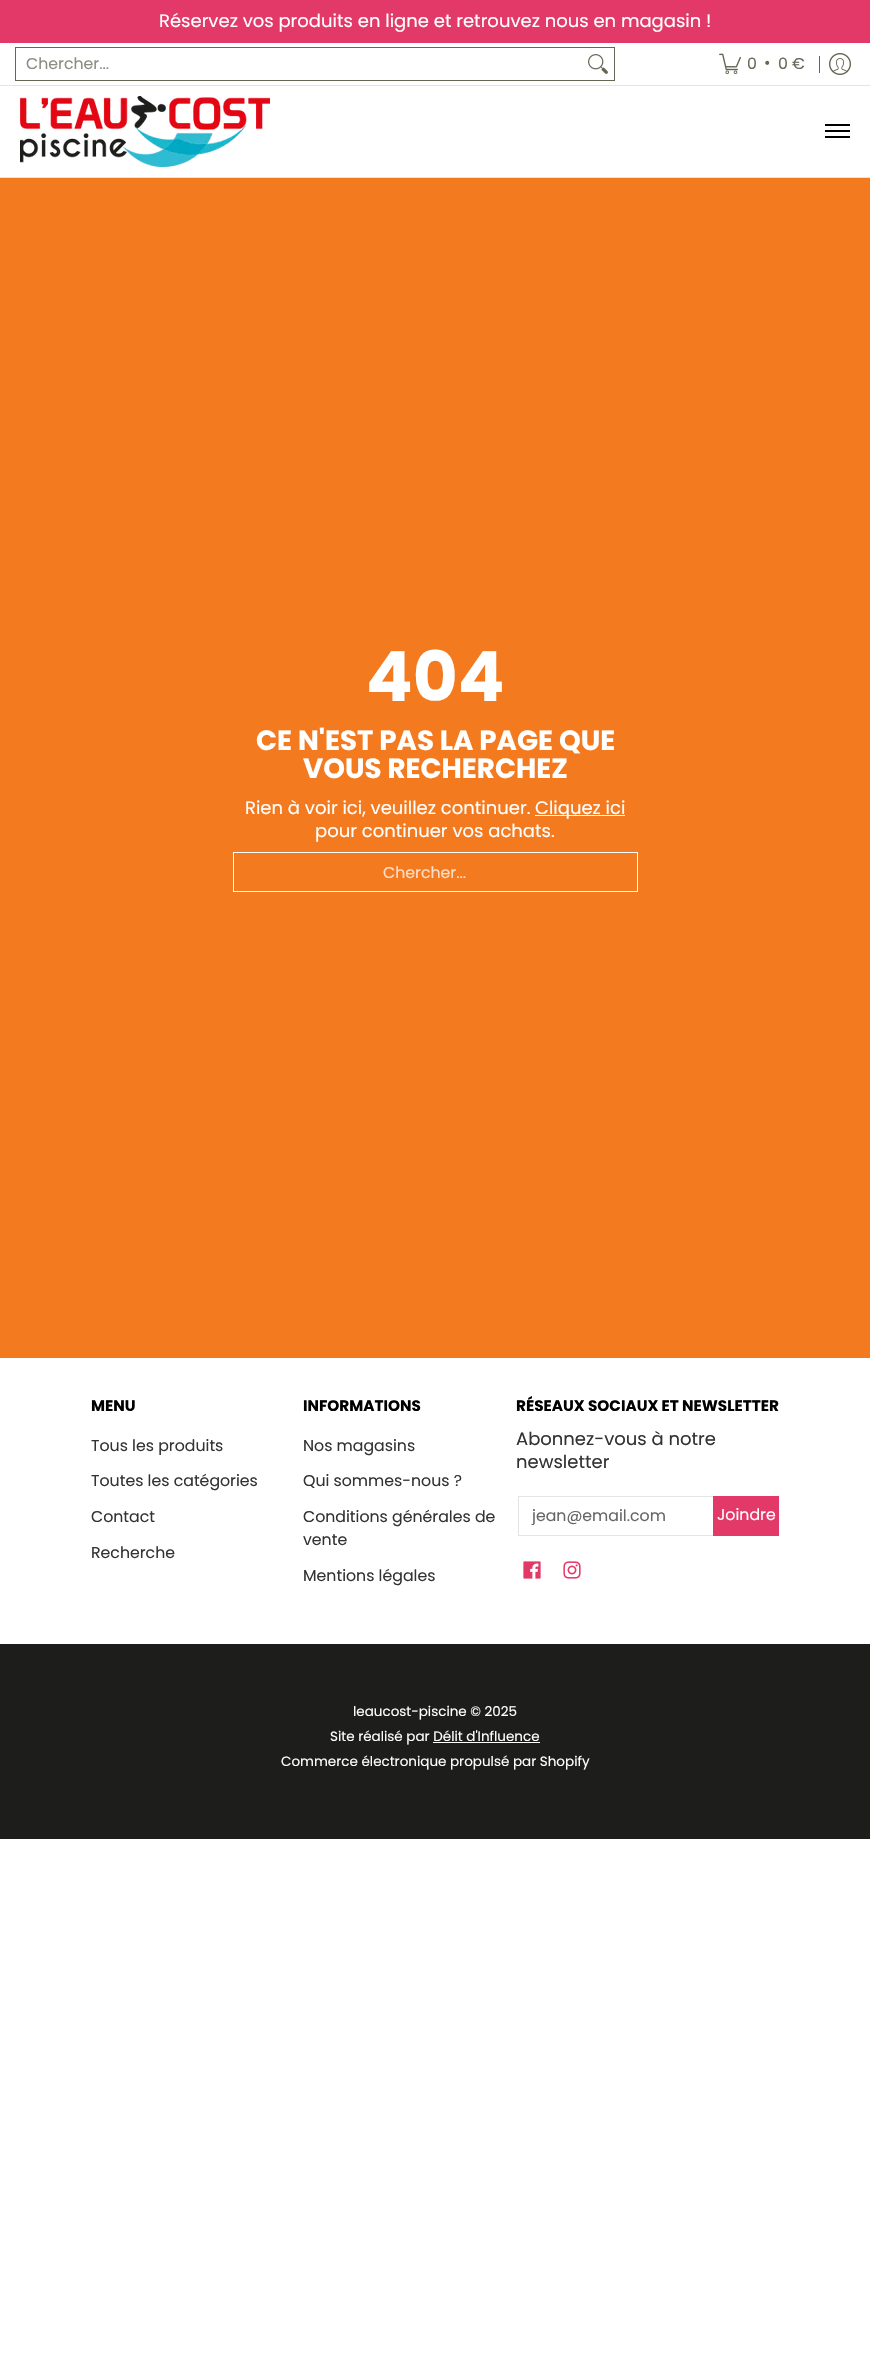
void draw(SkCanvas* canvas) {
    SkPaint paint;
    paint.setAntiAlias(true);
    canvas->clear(0xFFFFFFFF);
    paint.setColor(0xFFE33968);
    canvas->drawRect(SkRect::MakeXYWH(0, 0, 870, 43), paint);
    SkFont font1(fontMgr->matchFamilyStyle("Poppins", SkFontStyle::Normal()), 18);
    font1.setSubpixel(true);
    paint.setColor(0xFFFFFFFF);
    canvas->drawString("Réservez vos produits en ligne et retrouvez nous en magasin !", 159, 27, font1, paint);
    paint.setColor(0xFFE4E4E4);
    canvas->drawRect(SkRect::MakeXYWH(0, 85, 870, 1), paint);
    paint.setStyle(SkPaint::kStroke_Style);
    paint.setStrokeWidth(1);
    paint.setColor(0xFF666655);
    canvas->drawRect(SkRect::MakeXYWH(15.5f, 47.5f, 599, 33), paint);
    SkFont font2(fontMgr->matchFamilyStyle("Poppins", SkFontStyle::Normal()), 15.75f);
    font2.setSubpixel(true);
    paint.setStyle(SkPaint::kFill_Style);
    paint.setColor(0xFF8C8C80);
    canvas->drawString("Chercher...", 26, 69, font2, paint);
    canvas->drawImageRect(SkImages::DeferredFromEncodedData(SkData::MakeFromFileName("img1.png")), SkRect::MakeXYWH(588, 54, 20, 20), SkSamplingOptions());
    canvas->drawImageRect(SkImages::DeferredFromEncodedData(SkData::MakeFromFileName("img2.png")), SkRect::MakeXYWH(719, 53, 22, 22), SkSamplingOptions());
    paint.setColor(0xFF666655);
    canvas->drawString("0", 747, 69, font2, paint);
    canvas->drawString("•", 764, 68, font2, paint);
    canvas->drawString("0 €", 778, 69, font2, paint);
    canvas->drawRect(SkRect::MakeXYWH(819, 56, 1, 17), paint);
    canvas->drawImageRect(SkImages::DeferredFromEncodedData(SkData::MakeFromFileName("img3.png")), SkRect::MakeXYWH(829, 53, 22, 22), SkSamplingOptions());
    paint.setColor(0xFFE4E4E4);
    canvas->drawRect(SkRect::MakeXYWH(0, 177, 870, 1), paint);
    canvas->drawImageRect(SkImages::DeferredFromEncodedData(SkData::MakeFromFileName("img4.png")), SkRect::MakeXYWH(20, 96, 250, 71), SkSamplingOptions());
    paint.setColor(0xFF000000);
    canvas->drawRect(SkRect::MakeXYWH(825, 124, 25, 2), paint);
    canvas->drawRect(SkRect::MakeXYWH(825, 136, 25, 2), paint);
    canvas->drawRect(SkRect::MakeXYWH(825, 130, 25, 2), paint);
    paint.setColor(0xFFF37A1F);
    canvas->drawRect(SkRect::MakeXYWH(0, 178, 870, 1180), paint);
    SkFont font3(fontMgr->matchFamilyStyle("Poppins", SkFontStyle::Bold()), 69);
    font3.setSubpixel(true);
    paint.setColor(0xFFFFFFFF);
    canvas->drawString("404", 366, 701, font3, paint);
    SkFont font4(fontMgr->matchFamilyStyle("Poppins", SkFontStyle::Bold()), 27.7f);
    font4.setSubpixel(true);
    canvas->drawString("CE N'EST PAS LA PAGE QUE", 256, 750, font4, paint);
    canvas->drawString("VOUS RECHERCHEZ", 303, 778, font4, paint);
    canvas->drawString("Rien à voir ici, veuillez continuer.", 245, 814, font1, paint);
    canvas->drawRect(SkRect::MakeXYWH(535, 815, 90, 1), paint);
    canvas->drawString("Cliquez ici", 535, 814, font1, paint);
    canvas->drawString("pour continuer vos achats.", 315, 837, font1, paint);
    paint.setStyle(SkPaint::kStroke_Style);
    canvas->drawRect(SkRect::MakeXYWH(233.5f, 852.5f, 404, 39), paint);
    paint.setStyle(SkPaint::kFill_Style);
    paint.setColor(0xFFFCDEC7);
    canvas->drawString("Chercher...", 383, 878, font2, paint);
    SkFont font5(fontMgr->matchFamilyStyle("Poppins", SkFontStyle::Bold()), 15.25f);
    font5.setSubpixel(true);
    paint.setColor(0xFF000000);
    canvas->drawString("MENU", 91, 1411, font5, paint);
    paint.setColor(0xFF333333);
    canvas->drawString("Tous les produits", 91, 1451, font2, paint);
    canvas->drawString("Toutes les catégories", 91, 1486, font2, paint);
    canvas->drawString("Contact", 91, 1522, font2, paint);
    canvas->drawString("Recherche", 91, 1558, font2, paint);
    paint.setColor(0xFF000000);
    canvas->drawString("INFORMATIONS", 303, 1411, font5, paint);
    paint.setColor(0xFF333333);
    canvas->drawString("Nos magasins", 303, 1451, font2, paint);
    canvas->drawString("Qui sommes-nous ?", 303, 1486, font2, paint);
    canvas->drawString("Conditions générales de", 303, 1522, font2, paint);
    canvas->drawString("vente", 303, 1545, font2, paint);
    canvas->drawString("Mentions légales", 303, 1581, font2, paint);
    paint.setColor(0xFF000000);
    canvas->drawString("RÉSEAUX SOCIAUX ET NEWSLETTER", 516, 1411, font5, paint);
    paint.setColor(0xFF333333);
    canvas->drawString("Abonnez-vous à notre", 516, 1445, font1, paint);
    canvas->drawString("newsletter", 516, 1468, font1, paint);
    paint.setStyle(SkPaint::kStroke_Style);
    paint.setColor(0xFFE4E4E4);
    canvas->drawRect(SkRect::MakeXYWH(518.5f, 1496.5f, 196, 39), paint);
    paint.setStyle(SkPaint::kFill_Style);
    paint.setColor(0xFF666666);
    canvas->drawString("jean@email.com", 532, 1521, font2, paint);
    paint.setColor(0xFFE33968);
    canvas->drawRect(SkRect::MakeXYWH(713, 1496, 66, 40), paint);
    paint.setColor(0xFFFFFFFF);
    canvas->drawString("Joindre", 717, 1520, font2, paint);
    canvas->drawImageRect(SkImages::DeferredFromEncodedData(SkData::MakeFromFileName("img5.png")), SkRect::MakeXYWH(523, 1561, 18, 18), SkSamplingOptions());
    canvas->drawImageRect(SkImages::DeferredFromEncodedData(SkData::MakeFromFileName("img6.png")), SkRect::MakeXYWH(563, 1561, 18, 18), SkSamplingOptions());
    paint.setColor(0xFF1D1D1B);
    canvas->drawRect(SkRect::MakeXYWH(0, 1644, 870, 195), paint);
    SkFont font6(fontMgr->matchFamilyStyle("Poppins", SkFontStyle::Normal()), 13.5f);
    font6.setSubpixel(true);
    paint.setColor(0xFFFFFFFF);
    canvas->drawString("leaucost-piscine © 2025", 353, 1716, font6, paint);
    canvas->drawString("Site réalisé par Délit d'Influence", 330, 1741, font6, paint);
    canvas->drawRect(SkRect::MakeXYWH(433, 1742, 107, 1), paint);
    canvas->drawString("Commerce électronique propulsé par Shopify", 281, 1766, font6, paint);
}
